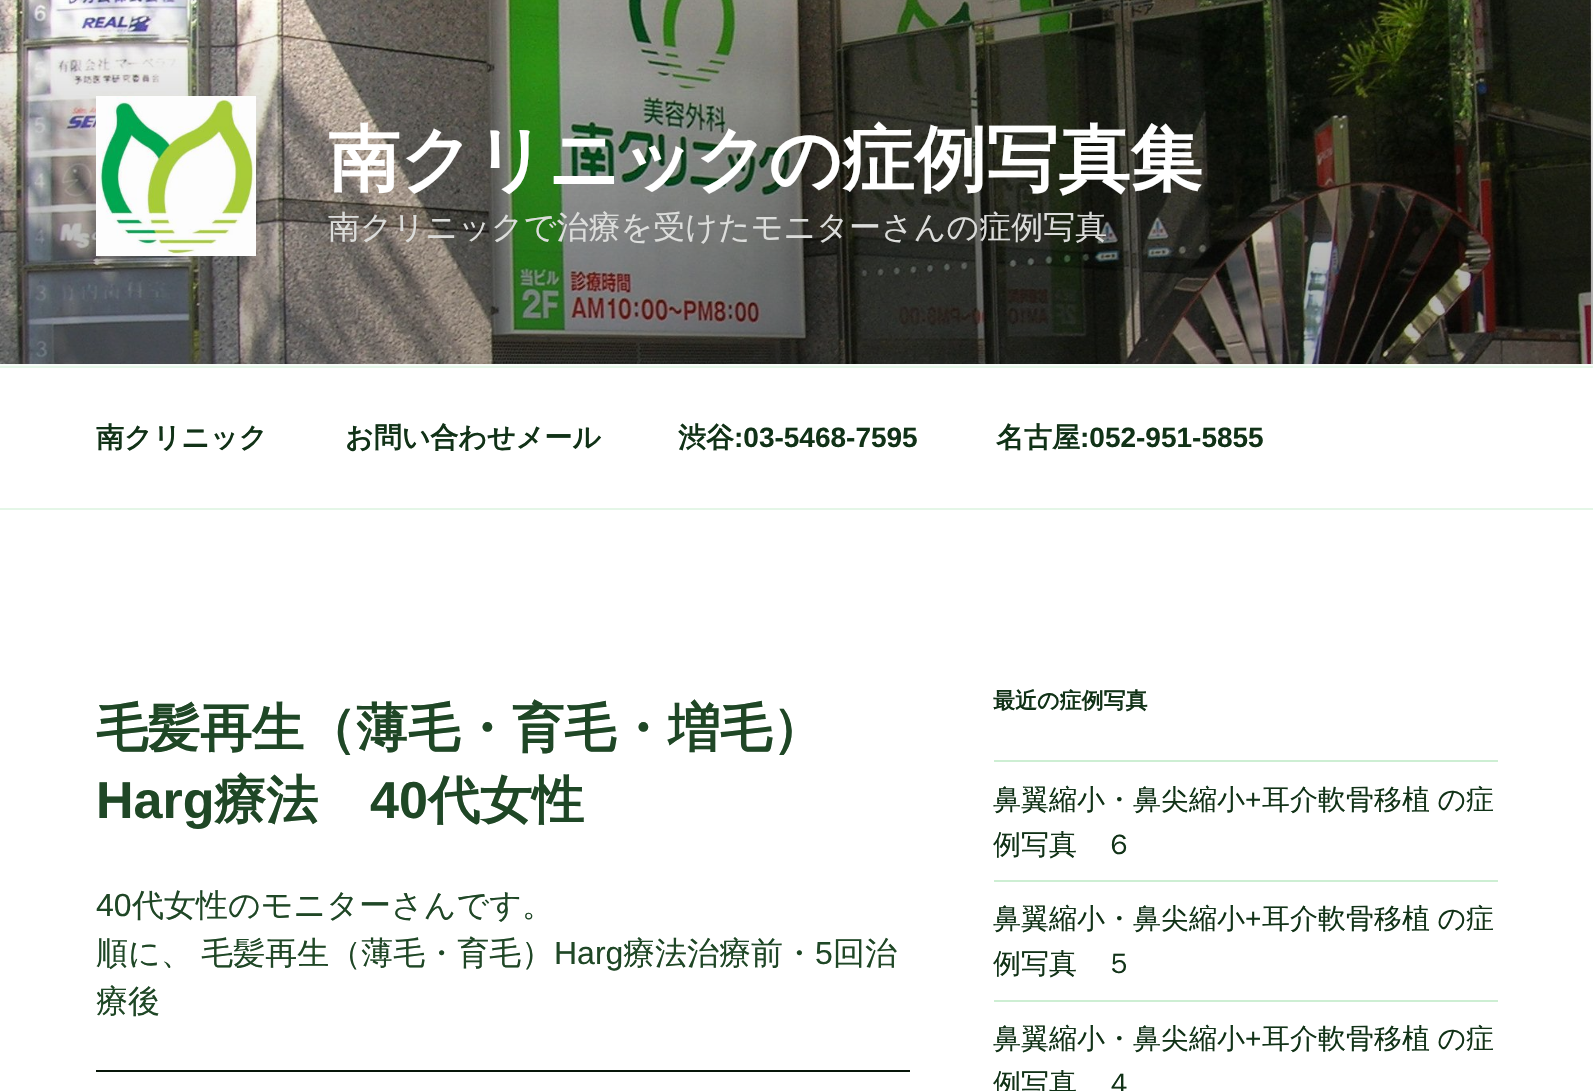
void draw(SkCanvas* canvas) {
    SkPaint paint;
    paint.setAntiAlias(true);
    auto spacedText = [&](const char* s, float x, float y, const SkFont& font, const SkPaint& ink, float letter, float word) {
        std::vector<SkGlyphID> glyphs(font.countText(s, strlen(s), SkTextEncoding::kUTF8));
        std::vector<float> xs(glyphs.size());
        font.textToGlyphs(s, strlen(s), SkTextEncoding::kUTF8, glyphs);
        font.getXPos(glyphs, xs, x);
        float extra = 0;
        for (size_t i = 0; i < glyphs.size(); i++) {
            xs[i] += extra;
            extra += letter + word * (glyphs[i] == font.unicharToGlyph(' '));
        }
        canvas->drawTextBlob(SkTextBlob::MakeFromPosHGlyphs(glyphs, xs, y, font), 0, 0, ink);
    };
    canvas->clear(0xFFFFFFFF);
    paint.setColor(0xFFF7FCF8);
    canvas->drawRect(SkRect::MakeXYWH(0, 364, 1593, 2), paint);
    canvas->drawImageRect(SkImages::DeferredFromEncodedData(SkData::MakeFromFileName("img1.png")), SkRect::MakeXYWH(0, 0, 1593, 364), SkSamplingOptions());
    canvas->drawImageRect(SkImages::DeferredFromEncodedData(SkData::MakeFromFileName("img2.png")), SkRect::MakeXYWH(96, 96, 160, 160), SkSamplingOptions());
    SkFont font1(fontMgr->matchFamilyStyle("WenQuanYi Zen Hei", SkFontStyle::Bold()), 72);
    font1.setSubpixel(true);
    paint.setColor(0xFFFFFFFF);
    canvas->drawString("南クリニックの症例写真集", 328, 184, font1, paint);
    SkFont font2(fontMgr->matchFamilyStyle("WenQuanYi Zen Hei", SkFontStyle(500, SkFontStyle::kNormal_Width, SkFontStyle::kUpright_Slant)), 32);
    font2.setSubpixel(true);
    paint.setColor(0xFFDCDDDB);
    canvas->drawString("南クリニックで治療を受けたモニターさんの症例写真", 328, 238, font2, paint);
    paint.setColor(0xFFE4F6E7);
    canvas->drawRect(SkRect::MakeXYWH(0, 366, 1593, 2), paint);
    canvas->drawRect(SkRect::MakeXYWH(0, 508, 1593, 2), paint);
    SkFont font3(fontMgr->matchFamilyStyle("WenQuanYi Zen Hei", SkFontStyle::Bold()), 28);
    font3.setSubpixel(true);
    paint.setColor(0xFF113217);
    canvas->drawString("南クリニック", 96, 447, font3, paint);
    canvas->drawString("お問い合わせメール", 345, 447, font3, paint);
    canvas->drawString("渋谷", 678, 447, font3, paint);
    SkFont font4(fontMgr->matchFamilyStyle("Liberation Sans", SkFontStyle::Bold()), 28);
    font4.setSubpixel(true);
    canvas->drawString(":03-5468-7595", 734, 447, font4, paint);
    canvas->drawString("名古屋", 996, 447, font3, paint);
    canvas->drawString(":052-951-5855", 1080, 447, font4, paint);
    SkFont font5(fontMgr->matchFamilyStyle("WenQuanYi Zen Hei", SkFontStyle::Bold()), 52);
    font5.setSubpixel(true);
    paint.setColor(0xFF1F4726);
    canvas->drawString("毛髪再生（薄毛・育毛・増毛）", 96, 746, font5, paint);
    SkFont font6(fontMgr->matchFamilyStyle("Liberation Sans", SkFontStyle::Bold()), 52);
    font6.setSubpixel(true);
    canvas->drawString("Harg", 96, 818, font6, paint);
    canvas->drawString("療法", 214, 818, font5, paint);
    canvas->drawString("40", 370, 818, font6, paint);
    canvas->drawString("代女性", 428, 818, font5, paint);
    SkFont font7(fontMgr->matchFamilyStyle("Liberation Sans", SkFontStyle::Normal()), 32);
    font7.setSubpixel(true);
    canvas->drawString("40", 96, 916, font7, paint);
    canvas->drawString("代女性のモニターさんです。", 132, 916, font2, paint);
    spacedText("順に、 毛髪再生（薄毛・育毛）", 96, 964, font2, paint, 0, -1);
    canvas->drawString("Harg", 554, 964, font7, paint);
    canvas->drawString("療法治療前・", 623, 964, font2, paint);
    canvas->drawString("5", 815, 964, font7, paint);
    canvas->drawString("回治", 833, 964, font2, paint);
    canvas->drawString("療後", 96, 1012, font2, paint);
    paint.setColor(0xFF08170A);
    canvas->drawRect(SkRect::MakeXYWH(96, 1070, 814, 2), paint);
    SkFont font8(fontMgr->matchFamilyStyle("WenQuanYi Zen Hei", SkFontStyle::Bold()), 22);
    font8.setSubpixel(true);
    paint.setColor(0xFF113217);
    canvas->drawString("最近の症例写真", 993, 708, font8, paint);
    paint.setColor(0xFFCDEED3);
    canvas->drawRect(SkRect::MakeXYWH(994, 760, 504, 2), paint);
    canvas->drawRect(SkRect::MakeXYWH(994, 880, 504, 2), paint);
    SkFont font9(fontMgr->matchFamilyStyle("WenQuanYi Zen Hei", SkFontStyle(500, SkFontStyle::kNormal_Width, SkFontStyle::kUpright_Slant)), 28);
    font9.setSubpixel(true);
    paint.setColor(0xFF113217);
    canvas->drawString("鼻翼縮小・鼻尖縮小", 993, 809, font9, paint);
    SkFont font10(fontMgr->matchFamilyStyle("Liberation Sans", SkFontStyle::Normal()), 28);
    font10.setSubpixel(true);
    canvas->drawString("+", 1245, 809, font10, paint);
    spacedText("耳介軟骨移植 の症", 1262, 809, font9, paint, 0, -1);
    canvas->drawString("例写真　６", 993, 854, font9, paint);
    paint.setColor(0xFFCDEED3);
    canvas->drawRect(SkRect::MakeXYWH(994, 1000, 504, 2), paint);
    paint.setColor(0xFF113217);
    canvas->drawString("鼻翼縮小・鼻尖縮小", 993, 928, font9, paint);
    canvas->drawString("+", 1245, 928, font10, paint);
    spacedText("耳介軟骨移植 の症", 1262, 928, font9, paint, 0, -1);
    canvas->drawString("例写真　５", 993, 973, font9, paint);
    canvas->drawString("鼻翼縮小・鼻尖縮小", 993, 1048, font9, paint);
    canvas->drawString("+", 1245, 1048, font10, paint);
    spacedText("耳介軟骨移植 の症", 1262, 1048, font9, paint, 0, -1);
    canvas->drawString("例写真　４", 993, 1093, font9, paint);
}
